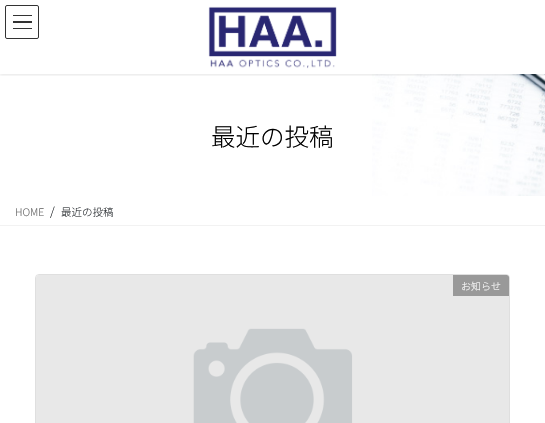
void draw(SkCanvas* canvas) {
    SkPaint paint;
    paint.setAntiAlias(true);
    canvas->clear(0xFFFFFFFF);
    canvas->drawImageRect(SkImages::DeferredFromEncodedData(SkData::MakeFromFileName("img2.png")), SkRect::MakeXYWH(372, 74, 173, 122), SkSamplingOptions());
    canvas->save();
    canvas->clipRect(SkRect::MakeXYWH(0, 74, 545, 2));
    paint.setColor(0x1A000000);
    paint.setMaskFilter(SkMaskFilter::MakeBlur(kNormal_SkBlurStyle, 1.5f));
    canvas->drawRect(SkRect::MakeXYWH(0, 1, 545, 74), paint);
    paint.setMaskFilter(nullptr);
    canvas->restore();
    canvas->drawImageRect(SkImages::DeferredFromEncodedData(SkData::MakeFromFileName("img1.png")), SkRect::MakeXYWH(208, 6, 129, 63), SkSamplingOptions());
    paint.setColor(0xFF333333);
    canvas->drawRect(SkRect::MakeXYWH(13, 15, 19, 1), paint);
    canvas->drawRect(SkRect::MakeXYWH(13, 21, 19, 2), paint);
    canvas->drawRect(SkRect::MakeXYWH(13, 28, 19, 1), paint);
    paint.setStyle(SkPaint::kStroke_Style);
    paint.setStrokeWidth(1);
    canvas->drawRoundRect(SkRect::MakeXYWH(5.5f, 5.5f, 33, 33), 1.5f, 1.5f, paint);
    SkFont font1(fontMgr->matchFamilyStyle("Noto Sans JP", SkFontStyle(100, SkFontStyle::kNormal_Width, SkFontStyle::kUpright_Slant)), 24.5f);
    font1.setSubpixel(true);
    paint.setStyle(SkPaint::kFill_Style);
    paint.setColor(0xFF000000);
    canvas->drawString("最近の投稿", 211, 146, font1, paint);
    paint.setColor(0xFFF2F2F2);
    canvas->drawRect(SkRect::MakeXYWH(0, 225, 545, 1), paint);
    SkFont font2(fontMgr->matchFamilyStyle("Noto Sans JP", SkFontStyle(100, SkFontStyle::kNormal_Width, SkFontStyle::kUpright_Slant)), 10.5f);
    font2.setSubpixel(true);
    paint.setColor(0xFF666666);
    canvas->drawString("HOME", 15, 216, font2, paint);
    SkFont font3(fontMgr->matchFamilyStyle("Noto Sans JP", SkFontStyle(100, SkFontStyle::kNormal_Width, SkFontStyle::kUpright_Slant)), 12);
    font3.setSubpixel(true);
    paint.setColor(0xFF212529);
    canvas->drawString("/", 50, 216, font3, paint);
    canvas->drawString("最近の投稿", 61, 216, font2, paint);
    paint.setStyle(SkPaint::kStroke_Style);
    paint.setColor(0xFFDFDFDF);
    canvas->drawRoundRect(SkRect::MakeXYWH(35.5f, 274.5f, 474, 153), 3.5f, 3.5f, paint);
    canvas->drawImageRect(SkImages::DeferredFromEncodedData(SkData::MakeFromFileName("img3.png")), SkRect::MakeXYWH(36, 275, 473, 148), SkSamplingOptions());
    paint.setStyle(SkPaint::kFill_Style);
    paint.setColor(0xFF999999);
    canvas->drawPath(SkPathBuilder().moveTo(453, 275).lineTo(506.5f, 275).cubicTo(508, 275, 509, 276, 509, 277.5f).lineTo(509, 296).lineTo(453, 296).close().detach(), paint);
    SkFont font4(fontMgr->matchFamilyStyle("Noto Sans JP", SkFontStyle(100, SkFontStyle::kNormal_Width, SkFontStyle::kUpright_Slant)), 10);
    font4.setSubpixel(true);
    paint.setColor(0xFFFFFFFF);
    canvas->drawString("お知らせ", 461, 290, font4, paint);
}
